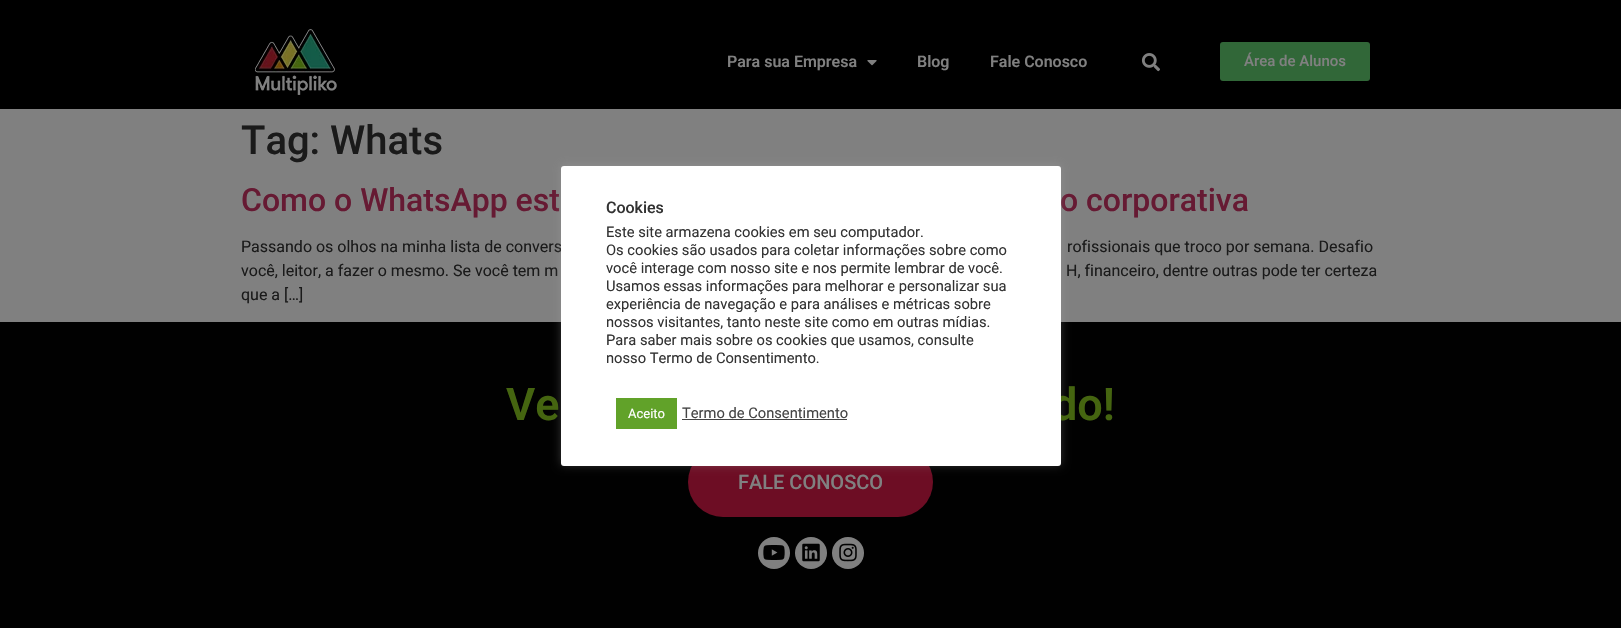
void draw(SkCanvas* canvas) {
    SkPaint paint;
    paint.setAntiAlias(true);
    canvas->clear(0xFF808080);
    paint.setColor(0xFF000000);
    canvas->drawRect(SkRect::MakeXYWH(0, 0, 1621, 109), paint);
    canvas->drawImageRect(SkImages::DeferredFromEncodedData(SkData::MakeFromFileName("img1.png")), SkRect::MakeXYWH(255, 29, 82, 66), SkSamplingOptions());
    SkFont font1(fontMgr->matchFamilyStyle("Roboto", SkFontStyle(600, SkFontStyle::kNormal_Width, SkFontStyle::kUpright_Slant)), 16);
    font1.setSubpixel(true);
    paint.setColor(0xFF808080);
    canvas->drawString("Para sua Empresa", 727, 67, font1, paint);
    canvas->drawImageRect(SkImages::DeferredFromEncodedData(SkData::MakeFromFileName("img2.png")), SkRect::MakeXYWH(867, 60, 10, 6), SkSamplingOptions());
    canvas->drawString("Blog", 917, 67, font1, paint);
    canvas->drawString("Fale Conosco", 990, 67, font1, paint);
    canvas->drawImageRect(SkImages::DeferredFromEncodedData(SkData::MakeFromFileName("img3.png")), SkRect::MakeXYWH(1141, 53, 19, 19), SkSamplingOptions());
    paint.setColor(0xFF316738);
    canvas->drawRoundRect(SkRect::MakeXYWH(1220, 42, 150, 39), 3, 3, paint);
    SkFont font2(fontMgr->matchFamilyStyle("Roboto", SkFontStyle(500, SkFontStyle::kNormal_Width, SkFontStyle::kUpright_Slant)), 15);
    font2.setSubpixel(true);
    paint.setColor(0xFF808080);
    canvas->drawString("Área de Alunos", 1244, 66, font2, paint);
    SkFont font3(fontMgr->matchFamilyStyle("Roboto", SkFontStyle(500, SkFontStyle::kNormal_Width, SkFontStyle::kUpright_Slant)), 40);
    font3.setSubpixel(true);
    paint.setColor(0xFF1A1A1A);
    canvas->drawString("Tag: Whats", 241, 154, font3, paint);
    SkFont font4(fontMgr->matchFamilyStyle("Roboto", SkFontStyle(500, SkFontStyle::kNormal_Width, SkFontStyle::kUpright_Slant)), 32);
    font4.setSubpixel(true);
    paint.setColor(0xFF661A33);
    canvas->drawString("Como o WhatsApp est", 241, 211, font4, paint);
    canvas->drawString("o corporativa", 1060, 211, font4, paint);
    SkFont font5(fontMgr->matchFamilyStyle("Roboto", SkFontStyle::Normal()), 16);
    font5.setSubpixel(true);
    paint.setColor(0xFF1A1A1A);
    canvas->drawString("Passando os olhos na minha lista de convers", 241, 252, font5, paint);
    canvas->drawString("rofissionais que troco por semana. Desafio", 1067, 252, font5, paint);
    canvas->drawString("você, leitor, a fazer o mesmo. Se você tem m", 241, 276, font5, paint);
    canvas->drawString("H, financeiro, dentre outras pode ter certeza", 1066, 276, font5, paint);
    canvas->drawString("que a […]", 241, 300, font5, paint);
    paint.setColor(0xFF010101);
    canvas->drawRect(SkRect::MakeXYWH(0, 322, 1621, 306), paint);
    paint.setColor(0xFF6D0D24);
    canvas->drawRoundRect(SkRect::MakeXYWH(688, 447, 245, 70), 35, 35, paint);
    paint.setColor(0x4DACABAB);
    paint.setMaskFilter(SkMaskFilter::MakeBlur(kNormal_SkBlurStyle, 5));
    canvas->drawRoundRect(SkRect::MakeXYWH(561, 165, 500, 300), 3, 3, paint);
    paint.setMaskFilter(nullptr);
    SkFont font6(fontMgr->matchFamilyStyle("Roboto", SkFontStyle(600, SkFontStyle::kNormal_Width, SkFontStyle::kUpright_Slant)), 45);
    font6.setSubpixel(true);
    paint.setColor(0xFF456510);
    canvas->drawString("do!", 1052, 420, font6, paint);
    paint.setColor(0xFFFFFFFF);
    canvas->drawRoundRect(SkRect::MakeXYWH(561, 166, 500, 300), 3, 3, paint);
    SkFont font7(fontMgr->matchFamilyStyle("Roboto", SkFontStyle(500, SkFontStyle::kNormal_Width, SkFontStyle::kUpright_Slant)), 16);
    font7.setSubpixel(true);
    paint.setColor(0xFF333333);
    canvas->drawString("Cookies", 606, 213, font7, paint);
    SkFont font8(fontMgr->matchFamilyStyle("Roboto", SkFontStyle::Normal()), 14.7f);
    font8.setSubpixel(true);
    canvas->drawString("Este site armazena cookies em seu computador.", 606, 237, font8, paint);
    canvas->drawString("Os cookies são usados para coletar informações sobre como", 606, 255, font8, paint);
    canvas->drawString("você interage com nosso site e nos permite lembrar de você.", 606, 273, font8, paint);
    canvas->drawString("Usamos essas informações para melhorar e personalizar sua", 606, 291, font8, paint);
    canvas->drawString("experiência de navegação e para análises e métricas sobre", 606, 309, font8, paint);
    canvas->drawString("nossos visitantes, tanto neste site como em outras mídias.", 606, 327, font8, paint);
    canvas->drawString("Para saber mais sobre os cookies que usamos, consulte", 606, 345, font8, paint);
    canvas->drawString("nosso Termo de Consentimento.", 606, 363, font8, paint);
    paint.setColor(0xFF61A229);
    canvas->drawRect(SkRect::MakeXYWH(616, 398, 61, 31), paint);
    SkFont font9(fontMgr->matchFamilyStyle("Roboto", SkFontStyle::Normal()), 13);
    font9.setSubpixel(true);
    paint.setColor(0xFFFFFFFF);
    canvas->drawString("Aceito", 628, 418, font9, paint);
    paint.setColor(0xFF444444);
    canvas->drawString("Termo de Consentimento", 682, 418, font8, paint);
    canvas->drawRect(SkRect::MakeXYWH(682, 419, 165, 1), paint);
    paint.setColor(0xFF456510);
    canvas->drawString("Ve", 506, 420, font6, paint);
    SkFont font10(fontMgr->matchFamilyStyle("Roboto", SkFontStyle(500, SkFontStyle::kNormal_Width, SkFontStyle::kUpright_Slant)), 20);
    font10.setSubpixel(true);
    paint.setColor(0xFF808080);
    canvas->drawString("FALE CONOSCO", 738, 489, font10, paint);
    canvas->drawCircle(774, 553, 16, paint);
    canvas->drawImageRect(SkImages::DeferredFromEncodedData(SkData::MakeFromFileName("img4.png")), SkRect::MakeXYWH(763, 545, 22, 15), SkSamplingOptions());
    canvas->drawCircle(811, 553, 16, paint);
    canvas->drawImageRect(SkImages::DeferredFromEncodedData(SkData::MakeFromFileName("img5.png")), SkRect::MakeXYWH(802, 543, 18, 19), SkSamplingOptions());
    canvas->drawCircle(848, 553, 16, paint);
    canvas->drawImageRect(SkImages::DeferredFromEncodedData(SkData::MakeFromFileName("img6.png")), SkRect::MakeXYWH(839, 543, 18, 19), SkSamplingOptions());
}
